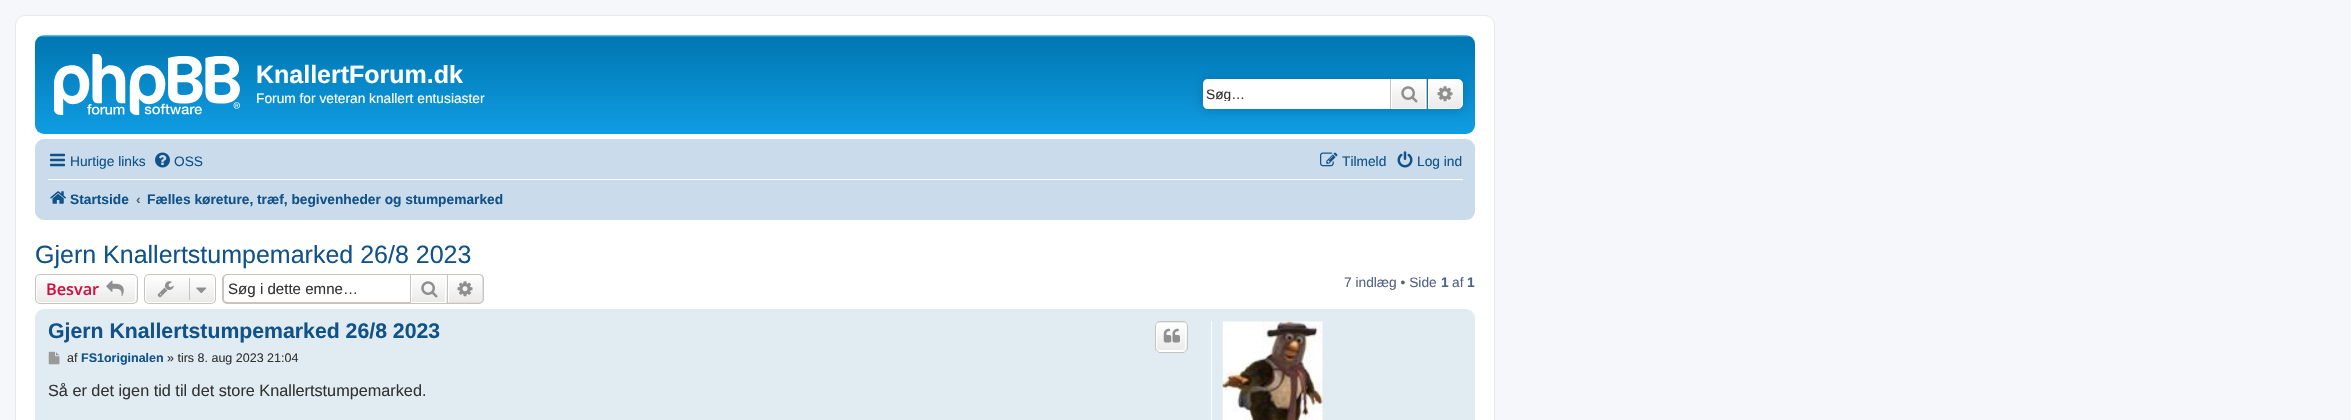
void draw(SkCanvas* canvas) {
    SkPaint paint;
    paint.setAntiAlias(true);
    canvas->clear(0xFFF5F7FA);
    paint.setColor(0xFFFFFFFF);
    canvas->drawRoundRect(SkRect::MakeXYWH(15.5f, 15.5f, 1479, 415), 9.5f, 9.5f, paint);
    paint.setStyle(SkPaint::kStroke_Style);
    paint.setStrokeWidth(1);
    paint.setColor(0xFFE6E9ED);
    canvas->drawRoundRect(SkRect::MakeXYWH(15.5f, 15.5f, 1479, 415), 9.5f, 9.5f, paint);
    paint.setStyle(SkPaint::kFill_Style);
    {
        const SkColor colors[] = {0xFF6ACEFF, 0xFF0076B1, 0xFF12A3EB};
        const float stops[] = {0, 0.02f, 1};
        const SkPoint ends[] = {{755, 35}, {755, 150}};
        paint.setShader(SkGradientShader::MakeLinear(ends, colors, stops, 3, SkTileMode::kClamp));
        paint.setAlpha(255);
    }
    canvas->drawRoundRect(SkRect::MakeXYWH(35, 35, 1440, 99), 9, 9, paint);
    canvas->drawImageRect(SkImages::DeferredFromEncodedData(SkData::MakeFromFileName("img1.png")), SkRect::MakeXYWH(54, 54, 186, 61), SkSamplingOptions());
    SkFont font1(fontMgr->matchFamilyStyle("Liberation Sans", SkFontStyle::Bold()), 25);
    font1.setSubpixel(true);
    paint.setShader(nullptr);
    paint.setColor(0xFFFFFFFF);
    canvas->drawString("KnallertForum.dk", 256, 83, font1, paint);
    SkFont font2(fontMgr->matchFamilyStyle("Liberation Sans", SkFontStyle::Normal()), 13.75f);
    font2.setSubpixel(true);
    canvas->drawString("Forum for veteran knallert entusiaster", 256, 103, font2, paint);
    paint.setColor(0xFF0075B0);
    paint.setMaskFilter(SkMaskFilter::MakeBlur(kNormal_SkBlurStyle, 6));
    canvas->drawRoundRect(SkRect::MakeXYWH(1203, 79, 260, 30), 5, 5, paint);
    paint.setMaskFilter(nullptr);
    paint.setColor(0xFFFFFFFF);
    canvas->drawPath(SkPathBuilder().moveTo(1208, 79).lineTo(1390, 79).lineTo(1390, 109).lineTo(1208, 109).cubicTo(1205, 109, 1203, 107, 1203, 104).lineTo(1203, 84).cubicTo(1203, 81, 1205, 79, 1208, 79).close().detach(), paint);
    canvas->save();
    canvas->clipRect(SkRect::MakeXYWH(1206, 86, 175, 15));
    paint.setColor(0xFF333333);
    canvas->drawString("Søg…", 1206, 99, font2, paint);
    canvas->restore();
    {
        const SkColor colors[] = {0xFFFFFFFF, 0xFFE9E9E9};
        const float stops[] = {0, 1};
        const SkPoint ends[] = {{1409, 79}, {1409, 109}};
        paint.setShader(SkGradientShader::MakeLinear(ends, colors, stops, 2, SkTileMode::kClamp));
        paint.setAlpha(255);
    }
    canvas->drawRect(SkRect::MakeXYWH(1392, 80, 33, 28), paint);
    paint.setStyle(SkPaint::kStroke_Style);
    paint.setShader(nullptr);
    paint.setColor(0xFFFFFFFF);
    canvas->drawRect(SkRect::MakeXYWH(1391.5f, 79.5f, 34, 29), paint);
    paint.setStyle(SkPaint::kFill_Style);
    paint.setColor(0xFFC7C3BF);
    canvas->drawRect(SkRect::MakeXYWH(1426, 79, 1, 30), paint);
    canvas->drawRect(SkRect::MakeXYWH(1390, 79, 1, 30), paint);
    canvas->drawImageRect(SkImages::DeferredFromEncodedData(SkData::MakeFromFileName("img2.png")), SkRect::MakeXYWH(1401, 86, 17, 17), SkSamplingOptions());
    {
        const SkColor colors[] = {0xFFFFFFFF, 0xFFE9E9E9};
        const float stops[] = {0, 1};
        const SkPoint ends[] = {{1445, 79}, {1445, 109}};
        paint.setShader(SkGradientShader::MakeLinear(ends, colors, stops, 2, SkTileMode::kClamp));
        paint.setAlpha(255);
    }
    canvas->drawPath(SkPathBuilder().moveTo(1428.5f, 79.5f).lineTo(1458, 79.5f).cubicTo(1460.5f, 79.5f, 1462.5f, 81.5f, 1462.5f, 84).lineTo(1462.5f, 104).cubicTo(1462.5f, 106.5f, 1460.5f, 108.5f, 1458, 108.5f).lineTo(1428.5f, 108.5f).close().detach(), paint);
    paint.setStyle(SkPaint::kStroke_Style);
    paint.setShader(nullptr);
    paint.setColor(0xFFFFFFFF);
    canvas->drawPath(SkPathBuilder().moveTo(1428.5f, 79.5f).lineTo(1458, 79.5f).cubicTo(1460.5f, 79.5f, 1462.5f, 81.5f, 1462.5f, 84).lineTo(1462.5f, 104).cubicTo(1462.5f, 106.5f, 1460.5f, 108.5f, 1458, 108.5f).lineTo(1428.5f, 108.5f).close().detach(), paint);
    canvas->drawImageRect(SkImages::DeferredFromEncodedData(SkData::MakeFromFileName("img3.png")), SkRect::MakeXYWH(1437, 86, 16, 16), SkSamplingOptions());
    paint.setStyle(SkPaint::kFill_Style);
    paint.setColor(0xFFCADCEB);
    canvas->drawRoundRect(SkRect::MakeXYWH(35, 139, 1440, 81), 9, 9, paint);
    canvas->drawImageRect(SkImages::DeferredFromEncodedData(SkData::MakeFromFileName("img4.png")), SkRect::MakeXYWH(50, 153, 15, 14), SkSamplingOptions());
    paint.setColor(0xFF105289);
    canvas->drawString("Hurtige links", 70, 166, font2, paint);
    canvas->drawImageRect(SkImages::DeferredFromEncodedData(SkData::MakeFromFileName("img5.png")), SkRect::MakeXYWH(155, 152, 15, 16), SkSamplingOptions());
    canvas->drawString("OSS", 174, 166, font2, paint);
    canvas->drawImageRect(SkImages::DeferredFromEncodedData(SkData::MakeFromFileName("img6.png")), SkRect::MakeXYWH(1320, 152, 18, 15), SkSamplingOptions());
    canvas->drawString("Tilmeld", 1342, 166, font2, paint);
    canvas->drawImageRect(SkImages::DeferredFromEncodedData(SkData::MakeFromFileName("img7.png")), SkRect::MakeXYWH(1397, 151, 16, 17), SkSamplingOptions());
    canvas->drawString("Log ind", 1417, 166, font2, paint);
    paint.setColor(0xFFFFFFFF);
    canvas->drawRect(SkRect::MakeXYWH(48, 179, 1415, 1), paint);
    canvas->drawImageRect(SkImages::DeferredFromEncodedData(SkData::MakeFromFileName("img8.png")), SkRect::MakeXYWH(50, 191, 16, 13), SkSamplingOptions());
    SkFont font3(fontMgr->matchFamilyStyle("Liberation Sans", SkFontStyle::Bold()), 13.75f);
    font3.setSubpixel(true);
    paint.setColor(0xFF105289);
    canvas->drawString("Startside", 70, 204, font3, paint);
    paint.setColor(0xFF536482);
    canvas->drawString("‹", 136, 204, font3, paint);
    paint.setColor(0xFF105289);
    canvas->drawString("Fælles køreture, træf, begivenheder og stumpemarked", 147, 204, font3, paint);
    SkFont font4(fontMgr->matchFamilyStyle("Liberation Sans", SkFontStyle::Normal()), 25);
    font4.setSubpixel(true);
    canvas->drawString("Gjern Knallertstumpemarked 26/8 2023", 35, 263, font4, paint);
    canvas->save();
    canvas->clipPath(SkPathBuilder().moveTo(40, 274).lineTo(133, 274).cubicTo(136, 274, 138, 276, 138, 279).lineTo(138, 299).cubicTo(138, 302, 136, 304, 133, 304).lineTo(40, 304).cubicTo(37, 304, 35, 302, 35, 299).lineTo(35, 279).cubicTo(35, 276, 37, 274, 40, 274).close().detach(), true);
    {
        const SkColor colors[] = {0xFFFFFFFF, 0xFFE9E9E9};
        const float stops[] = {0, 1};
        const SkPoint ends[] = {{86, 275}, {86, 303}};
        paint.setShader(SkGradientShader::MakeLinear(ends, colors, stops, 2, SkTileMode::kClamp));
        paint.setAlpha(255);
    }
    canvas->drawRect(SkRect::MakeXYWH(35, 275, 103, 28), paint);
    canvas->restore();
    paint.setStyle(SkPaint::kStroke_Style);
    paint.setShader(nullptr);
    paint.setColor(0xFFFFFFFF);
    canvas->drawRoundRect(SkRect::MakeXYWH(36.5f, 275.5f, 99, 27), 3.5f, 3.5f, paint);
    paint.setColor(0xFFC7C3BF);
    canvas->drawRoundRect(SkRect::MakeXYWH(35.5f, 274.5f, 102, 29), 4.5f, 4.5f, paint);
    SkFont font5(fontMgr->matchFamilyStyle("Open Sans", SkFontStyle(600, SkFontStyle::kNormal_Width, SkFontStyle::kUpright_Slant)), 16.25f);
    font5.setSubpixel(true);
    paint.setStyle(SkPaint::kFill_Style);
    paint.setColor(0xFFD31141);
    canvas->drawString("Besvar", 46, 295, font5, paint);
    canvas->drawImageRect(SkImages::DeferredFromEncodedData(SkData::MakeFromFileName("img9.png")), SkRect::MakeXYWH(106, 280, 18, 17), SkSamplingOptions());
    canvas->save();
    canvas->clipPath(SkPathBuilder().moveTo(149, 274).lineTo(211, 274).cubicTo(214, 274, 216, 276, 216, 279).lineTo(216, 299).cubicTo(216, 302, 214, 304, 211, 304).lineTo(149, 304).cubicTo(146, 304, 144, 302, 144, 299).lineTo(144, 279).cubicTo(144, 276, 146, 274, 149, 274).close().detach(), true);
    {
        const SkColor colors[] = {0xFFFFFFFF, 0xFFE9E9E9};
        const float stops[] = {0, 1};
        const SkPoint ends[] = {{180, 275}, {180, 303}};
        paint.setShader(SkGradientShader::MakeLinear(ends, colors, stops, 2, SkTileMode::kClamp));
        paint.setAlpha(255);
    }
    canvas->drawRect(SkRect::MakeXYWH(144, 275, 72, 28), paint);
    canvas->restore();
    paint.setStyle(SkPaint::kStroke_Style);
    paint.setShader(nullptr);
    paint.setColor(0xFFFFFFFF);
    canvas->drawRoundRect(SkRect::MakeXYWH(145.5f, 275.5f, 69, 27), 3.5f, 3.5f, paint);
    paint.setColor(0xFFC7C3BF);
    canvas->drawRoundRect(SkRect::MakeXYWH(144.5f, 274.5f, 71, 29), 4.5f, 4.5f, paint);
    canvas->drawImageRect(SkImages::DeferredFromEncodedData(SkData::MakeFromFileName("img10.png")), SkRect::MakeXYWH(157, 281, 17, 17), SkSamplingOptions());
    paint.setStyle(SkPaint::kFill_Style);
    canvas->drawRect(SkRect::MakeXYWH(189, 278, 1, 22), paint);
    canvas->drawImageRect(SkImages::DeferredFromEncodedData(SkData::MakeFromFileName("img11.png")), SkRect::MakeXYWH(196, 287, 11, 6), SkSamplingOptions());
    canvas->drawPath(SkPathBuilder(SkPathFillType::kEvenOdd).moveTo(228, 274).lineTo(410, 274).lineTo(410, 304).lineTo(228, 304).cubicTo(225, 304, 222, 302, 222, 299).lineTo(222, 279).cubicTo(222, 276, 225, 274, 228, 274).close().moveTo(228, 275).lineTo(410, 275).lineTo(410, 302).lineTo(228, 302).cubicTo(225, 302, 224, 301, 224, 299).lineTo(224, 279).cubicTo(224, 277, 225, 275, 228, 275).close().detach(), paint);
    SkFont font6(fontMgr->matchFamilyStyle("Liberation Sans", SkFontStyle::Normal()), 15.1f);
    font6.setSubpixel(true);
    paint.setColor(0xFF333333);
    canvas->drawString("Søg i dette emne…", 228, 294, font6, paint);
    {
        const SkColor colors[] = {0xFFFFFFFF, 0xFFE9E9E9};
        const float stops[] = {0, 1};
        const SkPoint ends[] = {{429, 275}, {429, 303}};
        paint.setShader(SkGradientShader::MakeLinear(ends, colors, stops, 2, SkTileMode::kClamp));
        paint.setAlpha(255);
    }
    canvas->drawRect(SkRect::MakeXYWH(412, 278, 35, 25), paint);
    paint.setStyle(SkPaint::kStroke_Style);
    paint.setShader(nullptr);
    paint.setColor(0xFFFFFFFF);
    canvas->drawRect(SkRect::MakeXYWH(411.5f, 275.5f, 34, 27), paint);
    paint.setColor(0xFFC7C3BF);
    canvas->drawRect(SkRect::MakeXYWH(410.5f, 274.5f, 37, 29), paint);
    canvas->drawImageRect(SkImages::DeferredFromEncodedData(SkData::MakeFromFileName("img12.png")), SkRect::MakeXYWH(421, 281, 17, 17), SkSamplingOptions());
    paint.setStyle(SkPaint::kFill_Style);
    {
        const SkColor colors[] = {0xFFFFFFFF, 0xFFE9E9E9};
        const float stops[] = {0, 1};
        const SkPoint ends[] = {{465, 275}, {465, 303}};
        paint.setShader(SkGradientShader::MakeLinear(ends, colors, stops, 2, SkTileMode::kClamp));
        paint.setAlpha(255);
    }
    canvas->drawPath(SkPathBuilder().moveTo(448.5f, 275.5f).lineTo(479, 275.5f).cubicTo(481, 275.5f, 482.5f, 277, 482.5f, 279).lineTo(482.5f, 299).cubicTo(482.5f, 301, 481, 302.5f, 479, 302.5f).lineTo(448.5f, 302.5f).close().detach(), paint);
    paint.setStyle(SkPaint::kStroke_Style);
    paint.setShader(nullptr);
    paint.setColor(0xFFFFFFFF);
    canvas->drawPath(SkPathBuilder().moveTo(448.5f, 275.5f).lineTo(479, 275.5f).cubicTo(481, 275.5f, 482.5f, 277, 482.5f, 279).lineTo(482.5f, 299).cubicTo(482.5f, 301, 481, 302.5f, 479, 302.5f).lineTo(448.5f, 302.5f).close().detach(), paint);
    paint.setStyle(SkPaint::kFill_Style);
    paint.setColor(0xFFC7C3BF);
    canvas->drawPath(SkPathBuilder(SkPathFillType::kEvenOdd).moveTo(447.5f, 274).lineTo(479, 274).cubicTo(481.5f, 274, 484, 276, 484, 279).lineTo(484, 299).cubicTo(484, 301.5f, 481.5f, 304, 479, 304).lineTo(447.5f, 304).close().moveTo(447.5f, 275).lineTo(479, 275).cubicTo(481, 275, 482.5f, 276.5f, 482.5f, 279).lineTo(482.5f, 299).cubicTo(482.5f, 301, 481, 302.5f, 479, 302.5f).lineTo(447.5f, 302.5f).close().detach(), paint);
    canvas->drawImageRect(SkImages::DeferredFromEncodedData(SkData::MakeFromFileName("img13.png")), SkRect::MakeXYWH(457, 281, 16, 16), SkSamplingOptions());
    paint.setColor(0xFF536482);
    canvas->drawString("7 indlæg • Side", 1344, 287, font2, paint);
    canvas->drawString("1", 1441, 287, font3, paint);
    canvas->drawString("af", 1452, 287, font2, paint);
    canvas->drawString("1", 1467, 287, font3, paint);
    paint.setColor(0xFFE1EBF2);
    canvas->drawRoundRect(SkRect::MakeXYWH(35, 309, 1440, 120), 9, 9, paint);
    SkFont font7(fontMgr->matchFamilyStyle("Liberation Sans", SkFontStyle::Bold()), 21.25f);
    font7.setSubpixel(true);
    paint.setColor(0xFF105289);
    canvas->drawString("Gjern Knallertstumpemarked 26/8 2023", 48, 338, font7, paint);
    canvas->save();
    canvas->clipPath(SkPathBuilder().moveTo(1160, 321).lineTo(1183, 321).cubicTo(1186, 321, 1188, 323, 1188, 326).lineTo(1188, 348).cubicTo(1188, 351, 1186, 353, 1183, 353).lineTo(1160, 353).cubicTo(1157, 353, 1155, 351, 1155, 348).lineTo(1155, 326).cubicTo(1155, 323, 1157, 321, 1160, 321).close().detach(), true);
    {
        const SkColor colors[] = {0xFFFFFFFF, 0xFFE9E9E9};
        const float stops[] = {0, 1};
        const SkPoint ends[] = {{1171, 294}, {1171, 323}};
        paint.setShader(SkGradientShader::MakeLinear(ends, colors, stops, 2, SkTileMode::kClamp));
        paint.setAlpha(255);
    }
    canvas->drawRect(SkRect::MakeXYWH(1155, 321, 33, 2), paint);
    {
        const SkColor colors[] = {0xFFFFFFFF, 0xFFE9E9E9};
        const float stops[] = {0, 1};
        const SkPoint ends[] = {{1171, 323}, {1171, 351}};
        paint.setShader(SkGradientShader::MakeLinear(ends, colors, stops, 2, SkTileMode::kClamp));
        paint.setAlpha(255);
    }
    canvas->drawRect(SkRect::MakeXYWH(1155, 323, 33, 28), paint);
    {
        const SkColor colors[] = {0xFFFFFFFF, 0xFFE9E9E9};
        const float stops[] = {0, 1};
        const SkPoint ends[] = {{1171, 351}, {1171, 380}};
        paint.setShader(SkGradientShader::MakeLinear(ends, colors, stops, 2, SkTileMode::kClamp));
        paint.setAlpha(255);
    }
    canvas->drawRect(SkRect::MakeXYWH(1155, 351, 33, 2), paint);
    canvas->restore();
    paint.setStyle(SkPaint::kStroke_Style);
    paint.setShader(nullptr);
    paint.setColor(0xFFFFFFFF);
    canvas->drawRoundRect(SkRect::MakeXYWH(1156.5f, 323.5f, 29, 27), 3.5f, 3.5f, paint);
    paint.setColor(0xFFC7C3BF);
    canvas->drawRoundRect(SkRect::MakeXYWH(1155.5f, 321.5f, 32, 31), 4.5f, 4.5f, paint);
    canvas->drawImageRect(SkImages::DeferredFromEncodedData(SkData::MakeFromFileName("img14.png")), SkRect::MakeXYWH(1163, 328, 17, 15), SkSamplingOptions());
    canvas->drawImageRect(SkImages::DeferredFromEncodedData(SkData::MakeFromFileName("img15.png")), SkRect::MakeXYWH(48, 351, 12, 14), SkSamplingOptions());
    SkFont font8(fontMgr->matchFamilyStyle("Liberation Sans", SkFontStyle::Normal()), 12.5f);
    font8.setSubpixel(true);
    paint.setStyle(SkPaint::kFill_Style);
    paint.setColor(0xFF333333);
    canvas->drawString("af", 67, 362, font8, paint);
    SkFont font9(fontMgr->matchFamilyStyle("Liberation Sans", SkFontStyle::Bold()), 12.5f);
    font9.setSubpixel(true);
    paint.setColor(0xFF105289);
    canvas->drawString("FS1originalen", 81, 362, font9, paint);
    paint.setColor(0xFF333333);
    canvas->drawString("» tirs 8. aug 2023 21:04", 167, 362, font8, paint);
    SkFont font10(fontMgr->matchFamilyStyle("Liberation Sans", SkFontStyle::Normal()), 16.25f);
    font10.setSubpixel(true);
    canvas->drawString("Så er det igen tid til det store Knallertstumpemarked.", 48, 396, font10, paint);
    paint.setColor(0xFFFFFFFF);
    canvas->drawRect(SkRect::MakeXYWH(1211, 321, 1, 99), paint);
    canvas->drawImageRect(SkImages::DeferredFromEncodedData(SkData::MakeFromFileName("img16.png")), SkRect::MakeXYWH(1222, 321, 101, 99), SkSamplingOptions());
}
